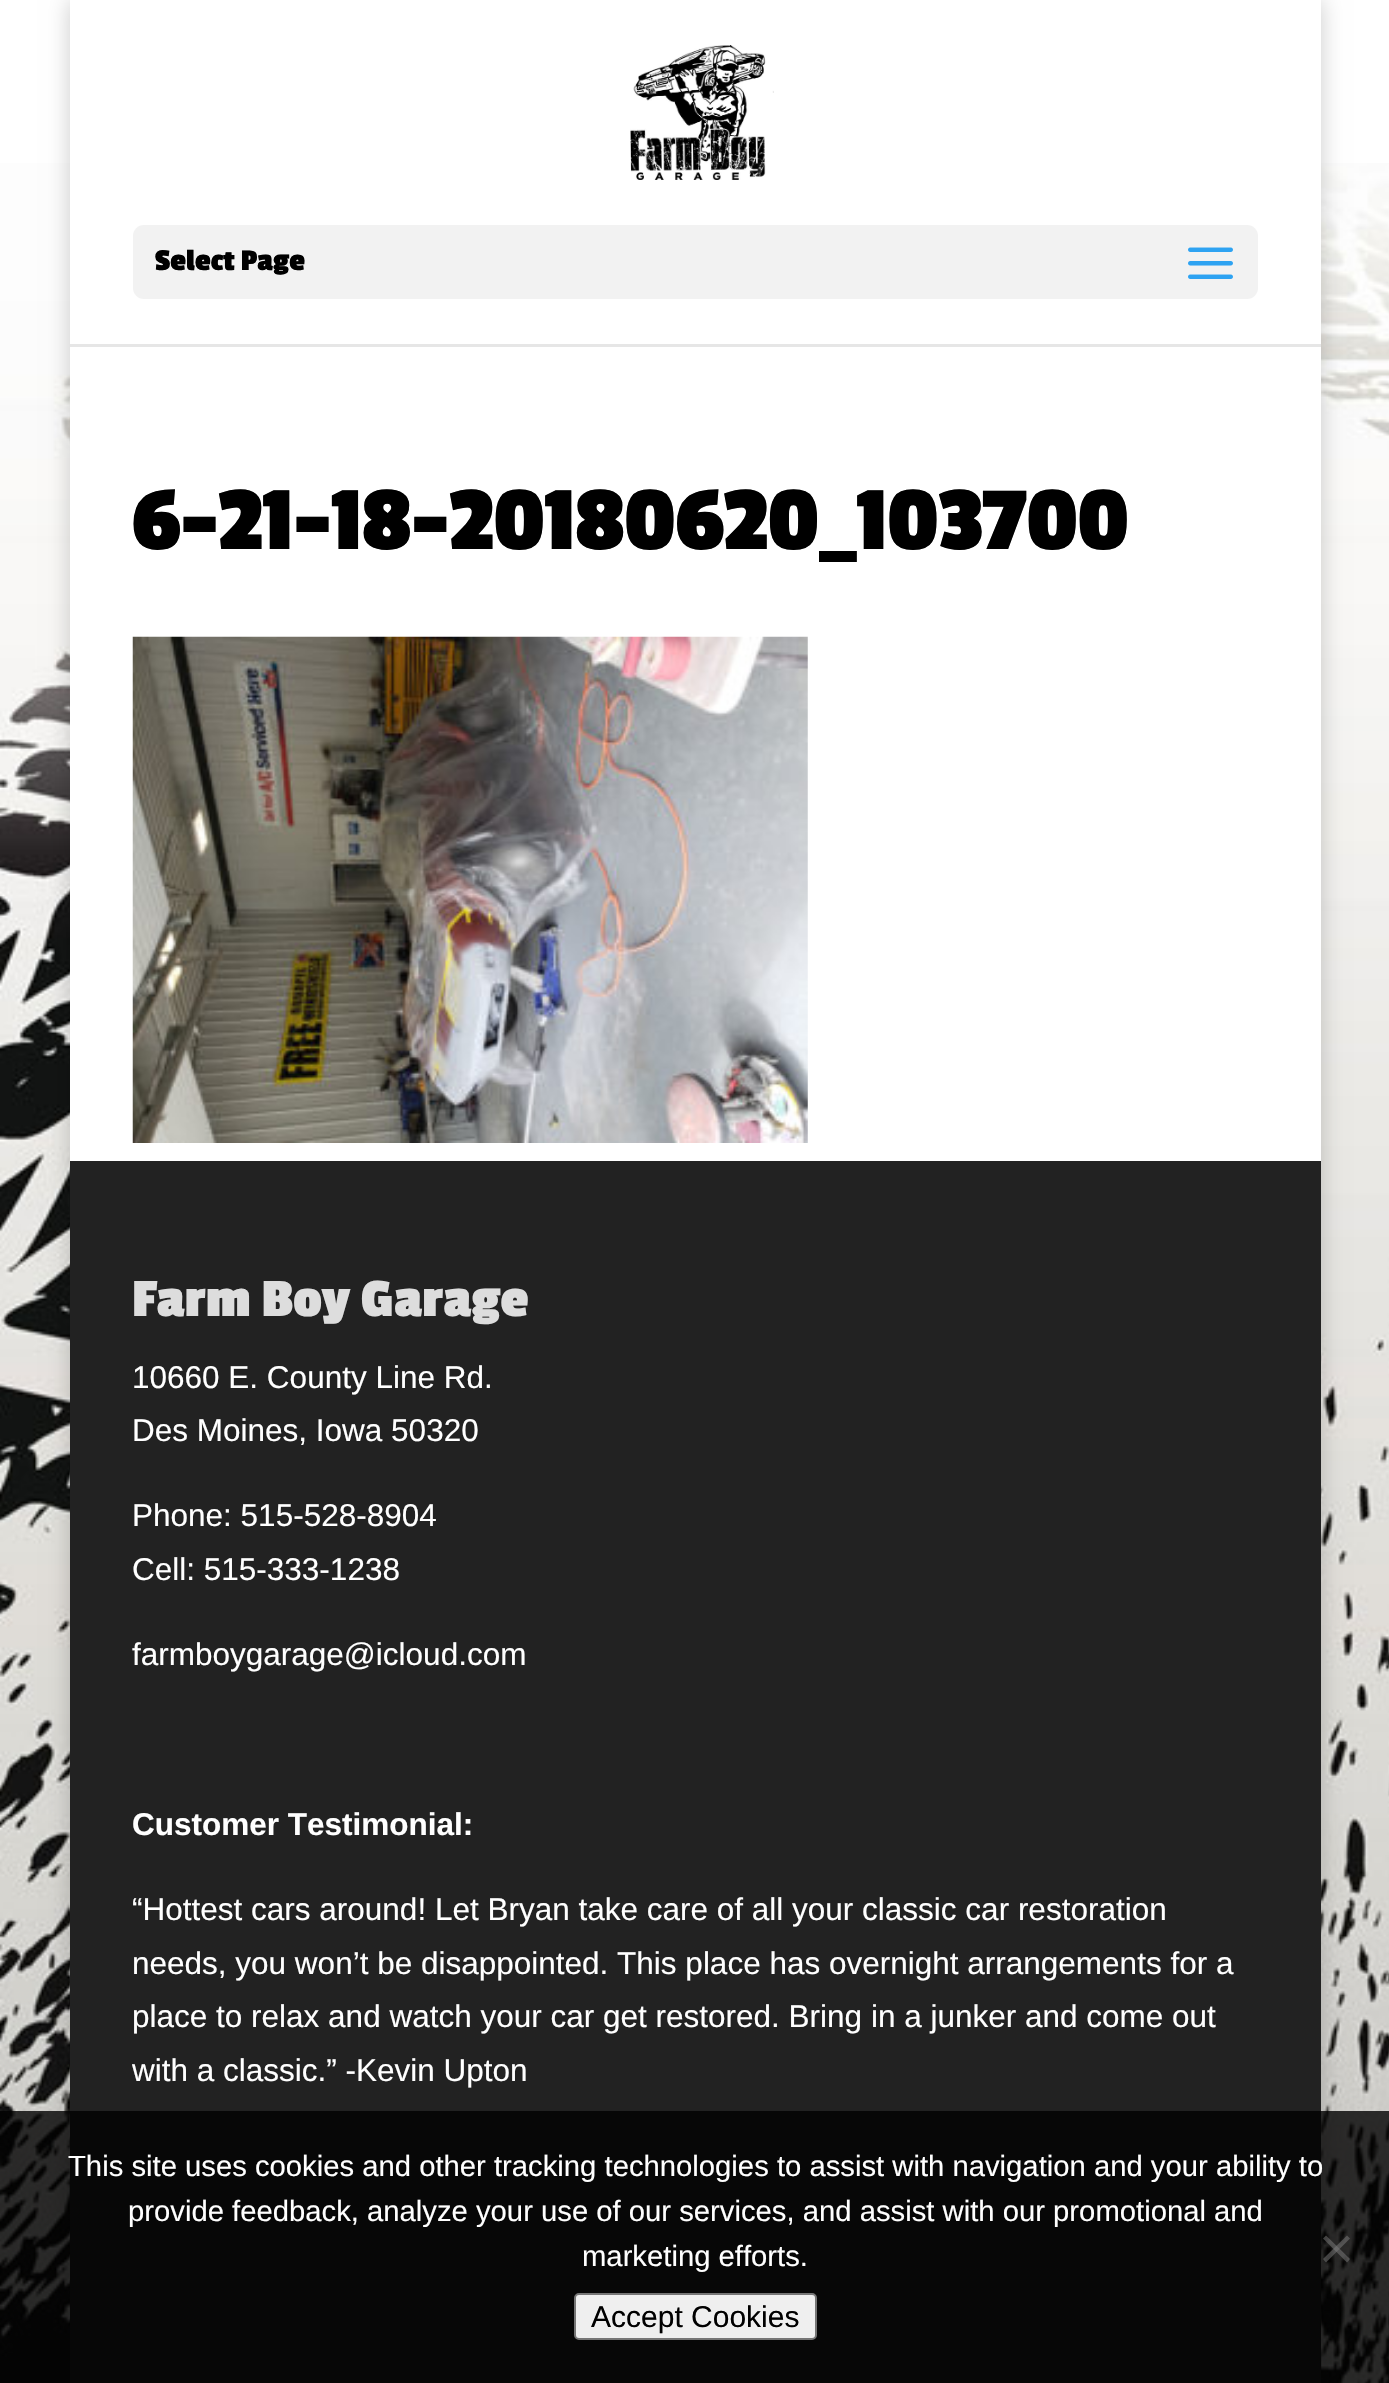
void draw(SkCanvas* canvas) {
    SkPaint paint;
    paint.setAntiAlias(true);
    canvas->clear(0xFFFFFFFF);
    canvas->drawImageRect(SkImages::DeferredFromEncodedData(SkData::MakeFromFileName("img1.png")), SkRect::MakeXYWH(0, 163, 1389, 2220), SkSamplingOptions());
    paint.setColor(0x33000000);
    paint.setMaskFilter(SkMaskFilter::MakeBlur(kNormal_SkBlurStyle, 11));
    canvas->drawRect(SkRect::MakeXYWH(70, 0, 1251, 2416), paint);
    paint.setMaskFilter(nullptr);
    paint.setColor(0xFFE6E6E6);
    canvas->drawPath(SkPathBuilder().moveTo(70, 344).lineTo(70, 347).lineTo(1321, 347).lineTo(1321, 2).lineTo(1321, 344).close().detach(), paint);
    paint.setColor(0xFFFFFFFF);
    canvas->drawRect(SkRect::MakeXYWH(70, 0, 1251, 344), paint);
    canvas->drawImageRect(SkImages::DeferredFromEncodedData(SkData::MakeFromFileName("img2.png")), SkRect::MakeXYWH(630, 45, 144, 135), SkSamplingOptions());
    paint.setColor(0xFFF2F2F2);
    canvas->drawRoundRect(SkRect::MakeXYWH(133, 225, 1125, 74), 11, 11, paint);
    SkFont font1(fontMgr->matchFamilyStyle("Passion One", SkFontStyle::Bold()), 31.5f);
    font1.setSubpixel(true);
    paint.setColor(0xFF000000);
    canvas->drawString("Select Page", 155, 270, font1, paint);
    canvas->drawImageRect(SkImages::DeferredFromEncodedData(SkData::MakeFromFileName("img3.png")), SkRect::MakeXYWH(1188, 247, 45, 32), SkSamplingOptions());
    paint.setColor(0xFFFFFFFF);
    canvas->drawRect(SkRect::MakeXYWH(70, 347, 1251, 814), paint);
    SkFont font2(fontMgr->matchFamilyStyle("Passion One", SkFontStyle::Bold()), 94.5f);
    font2.setSubpixel(true);
    paint.setColor(0xFF000000);
    canvas->drawString("6-21-18-20180620_103700", 132, 549, font2, paint);
    canvas->drawImageRect(SkImages::DeferredFromEncodedData(SkData::MakeFromFileName("img4.png")), SkRect::MakeXYWH(132, 636, 676, 507), SkSamplingOptions());
    paint.setColor(0xFF222222);
    canvas->drawRect(SkRect::MakeXYWH(70, 1161, 1251, 1222), paint);
    SkFont font3(fontMgr->matchFamilyStyle("Passion One", SkFontStyle::Bold()), 56.25f);
    font3.setSubpixel(true);
    paint.setColor(0xFFDDDDDD);
    canvas->drawString("Farm Boy Garage", 132, 1316, font3, paint);
    SkFont font4(fontMgr->matchFamilyStyle("Liberation Sans", SkFontStyle::Normal()), 31.5f);
    font4.setSubpixel(true);
    paint.setColor(0xFFFFFFFF);
    canvas->drawString("10660 E. County Line Rd.", 132, 1388, font4, paint);
    canvas->drawString("Des Moines, Iowa 50320", 132, 1441, font4, paint);
    canvas->drawString("Phone: 515-528-8904", 132, 1526, font4, paint);
    canvas->drawString("Cell: 515-333-1238", 132, 1580, font4, paint);
    canvas->drawString("farmboygarage@icloud.com", 132, 1665, font4, paint);
    SkFont font5(fontMgr->matchFamilyStyle("Liberation Sans", SkFontStyle::Bold()), 31.5f);
    font5.setSubpixel(true);
    canvas->drawString("Customer Testimonial:", 132, 1835, font5, paint);
    canvas->drawString("“Hottest cars around! Let Bryan take care of all your classic car restoration", 132, 1920, font4, paint);
    canvas->drawString("needs, you won’t be disappointed. This place has overnight arrangements for a", 132, 1974, font4, paint);
    canvas->drawString("place to relax and watch your car get restored. Bring in a junker and come out", 132, 2027, font4, paint);
    canvas->drawString("with a classic.” -Kevin Upton", 132, 2081, font4, paint);
    paint.setColor(0xCC000000);
    canvas->drawRect(SkRect::MakeXYWH(0, 2111, 1389, 272), paint);
    SkFont font6(fontMgr->matchFamilyStyle("Liberation Sans", SkFontStyle::Normal()), 29.25f);
    font6.setSubpixel(true);
    paint.setColor(0xFFFFFFFF);
    canvas->drawString("This site uses cookies and other tracking technologies to assist with navigation and your ability to", 68, 2176, font6, paint);
    canvas->drawString("provide feedback, analyze your use of our services, and assist with our promotional and", 128, 2221, font6, paint);
    canvas->drawString("marketing efforts.", 582, 2266, font6, paint);
    paint.setColor(0x80808080);
    canvas->drawPath(SkPathBuilder().moveTo(1347, 2235.5f).lineTo(1350, 2238.5f).lineTo(1326, 2262.5f).lineTo(1323, 2259).close().detach(), paint);
    canvas->drawPath(SkPathBuilder().moveTo(1323, 2238.5f).lineTo(1326, 2235.5f).lineTo(1350, 2259).lineTo(1347, 2262.5f).close().detach(), paint);
    paint.setColor(0xFFEFEFEF);
    canvas->drawRoundRect(SkRect::MakeXYWH(575, 2294, 241, 45), 4, 4, paint);
    paint.setStyle(SkPaint::kStroke_Style);
    paint.setStrokeWidth(2);
    paint.setColor(0xFF767676);
    canvas->drawRoundRect(SkRect::MakeXYWH(575, 2294, 241, 45), 4, 4, paint);
    SkFont font7(fontMgr->matchFamilyStyle("Liberation Sans", SkFontStyle::Normal()), 30);
    font7.setSubpixel(true);
    paint.setStyle(SkPaint::kFill_Style);
    paint.setColor(0xFF000000);
    canvas->drawString("Accept Cookies", 591, 2327, font7, paint);
}
